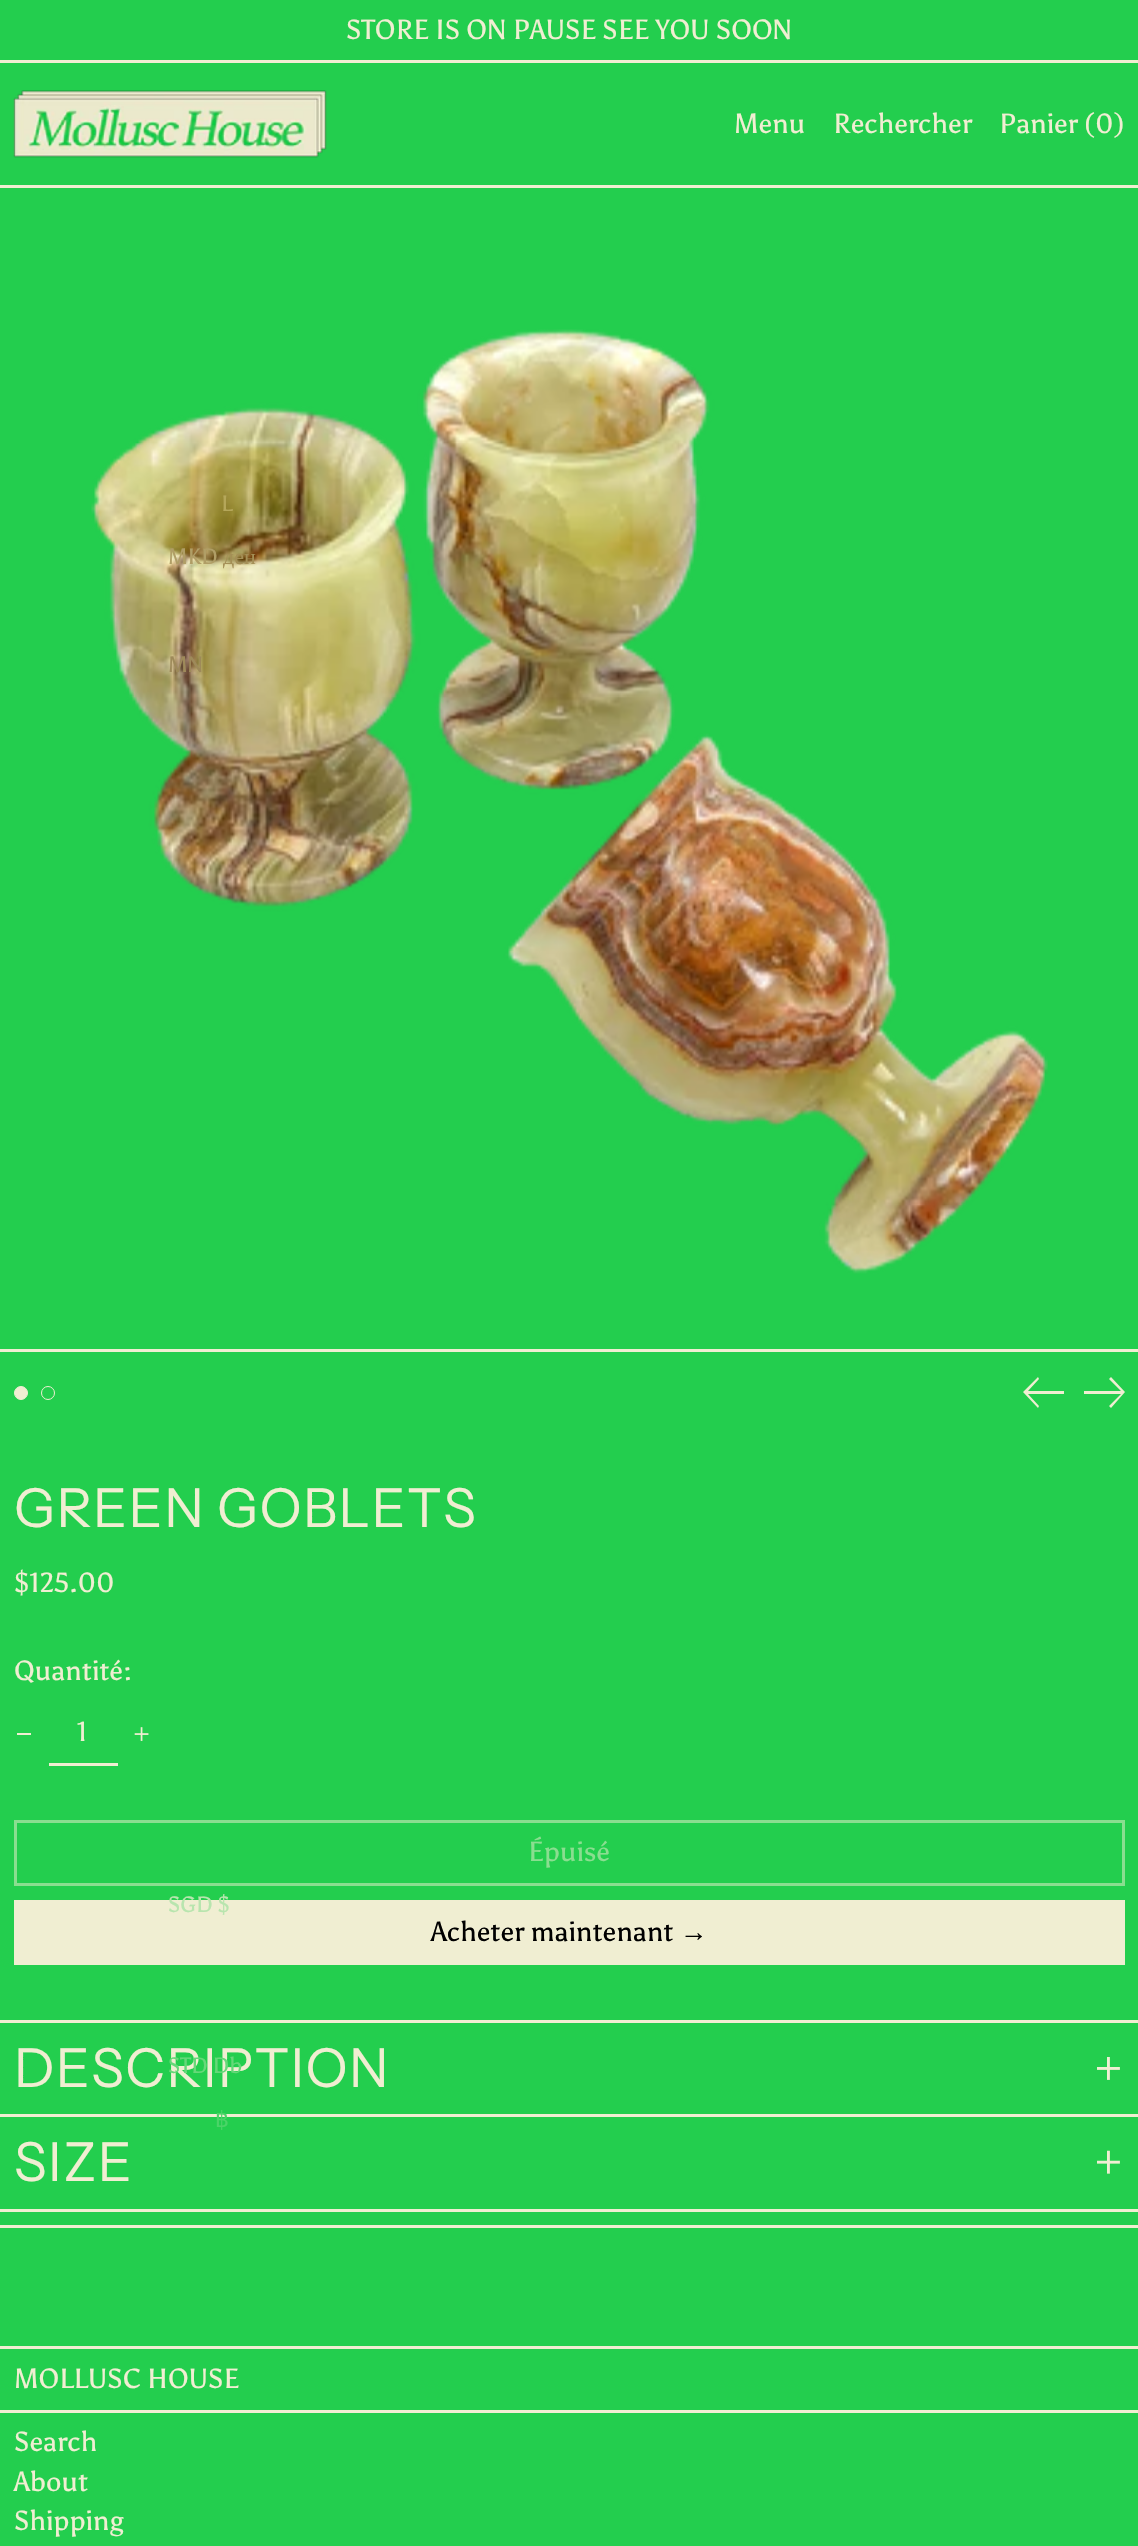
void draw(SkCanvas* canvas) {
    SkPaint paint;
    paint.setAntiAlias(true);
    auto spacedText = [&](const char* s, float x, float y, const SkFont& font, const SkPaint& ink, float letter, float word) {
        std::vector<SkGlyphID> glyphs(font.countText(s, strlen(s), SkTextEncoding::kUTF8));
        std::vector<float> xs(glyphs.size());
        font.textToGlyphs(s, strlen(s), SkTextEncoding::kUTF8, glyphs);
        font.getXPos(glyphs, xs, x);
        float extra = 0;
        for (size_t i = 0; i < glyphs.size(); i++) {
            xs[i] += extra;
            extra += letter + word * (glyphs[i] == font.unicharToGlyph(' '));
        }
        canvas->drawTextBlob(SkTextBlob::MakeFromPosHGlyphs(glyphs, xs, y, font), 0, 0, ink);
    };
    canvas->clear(0xFF23CE4E);
    paint.setColor(0xFFF0EED2);
    canvas->drawRect(SkRect::MakeXYWH(0, 60, 1138, 3), paint);
    SkFont font1(fontMgr->matchFamilyStyle("Asul", SkFontStyle::Normal()), 27.5f);
    font1.setSubpixel(true);
    canvas->drawString("STORE IS ON PAUSE SEE YOU SOON", 346, 39, font1, paint);
    canvas->drawRect(SkRect::MakeXYWH(0, 185, 1138, 3), paint);
    canvas->drawImageRect(SkImages::DeferredFromEncodedData(SkData::MakeFromFileName("img1.png")), SkRect::MakeXYWH(13, 90, 314, 68), SkSamplingOptions());
    canvas->drawString("Menu", 734, 133, font1, paint);
    canvas->drawString("Rechercher", 833, 133, font1, paint);
    canvas->drawString("Panier (0)", 999, 133, font1, paint);
    canvas->drawImageRect(SkImages::DeferredFromEncodedData(SkData::MakeFromFileName("img2.png")), SkRect::MakeXYWH(91, 329, 957, 945), SkSamplingOptions());
    SkFont font2(fontMgr->matchFamilyStyle("Asul", SkFontStyle::Normal()), 22);
    font2.setSubpixel(true);
    paint.setColor(0xFFB5A75A);
    canvas->drawString("L", 221, 511, font2, paint);
    paint.setColor(0xFFB09E66);
    canvas->drawString("MKD", 168, 564, font2, paint);
    SkFont font3(fontMgr->matchFamilyStyle("Liberation Serif", SkFontStyle::Normal()), 22);
    font3.setSubpixel(true);
    paint.setColor(0xFFA48F56);
    canvas->drawString("ден", 223, 564, font3, paint);
    paint.setColor(0xFF9E8A5A);
    canvas->drawString("MN", 168, 672, font2, paint);
    paint.setColor(0xFFF0EED2);
    canvas->drawRect(SkRect::MakeXYWH(14, 1900, 1111, 65), paint);
    paint.setColor(0xFFB8E5AE);
    canvas->drawString("SGD $", 168, 1912, font2, paint);
    SkFont font4(fontMgr->matchFamilyStyle("Instrument Sans", SkFontStyle::Normal()), 53.75f);
    font4.setSubpixel(true);
    paint.setColor(0xFFF0EED2);
    spacedText("DESCRIPTION", 14, 2087, font4, paint, 1.3f, 0);
    paint.setColor(0xFF66D879);
    canvas->drawString("STD Db", 168, 2073, font2, paint);
    paint.setColor(0xFFF0EED2);
    canvas->drawRect(SkRect::MakeXYWH(0, 2114, 1138, 3), paint);
    SkFont font5(fontMgr->matchFamilyStyle("DejaVu Sans", SkFontStyle::Normal()), 22);
    font5.setSubpixel(true);
    paint.setColor(0xFF4AD467);
    canvas->drawString("฿", 215, 2127, font5, paint);
    paint.setColor(0xFFF0EED2);
    canvas->drawRect(SkRect::MakeXYWH(0, 2346, 1138, 3), paint);
    canvas->drawRect(SkRect::MakeXYWH(0, 2410, 1138, 3), paint);
    canvas->drawString("MOLLUSC HOUSE", 14, 2388, font1, paint);
    canvas->drawString("Search", 14, 2451, font1, paint);
    canvas->drawString("About", 14, 2491, font1, paint);
    canvas->drawString("Shipping", 14, 2530, font1, paint);
    canvas->drawRect(SkRect::MakeXYWH(0, 1349, 1138, 3), paint);
    canvas->drawCircle(21, 1393, 6.5f, paint);
    paint.setStyle(SkPaint::kStroke_Style);
    paint.setStrokeWidth(1);
    canvas->drawCircle(21, 1393, 6.5f, paint);
    canvas->drawCircle(48, 1393, 6.5f, paint);
    paint.setStyle(SkPaint::kFill_Style);
    canvas->drawPath(SkPathBuilder().moveTo(1038, 1377).lineTo(1023, 1392).lineTo(1038, 1408).lineTo(1039, 1406).lineTo(1028, 1394).lineTo(1064, 1394).lineTo(1064, 1391).lineTo(1028, 1391).lineTo(1039, 1379).close().detach(), paint);
    canvas->drawPath(SkPathBuilder().moveTo(1111, 1377).lineTo(1125, 1392).lineTo(1111, 1408).lineTo(1109, 1406).lineTo(1121, 1394).lineTo(1084, 1394).lineTo(1084, 1391).lineTo(1121, 1391).lineTo(1109, 1379).close().detach(), paint);
    spacedText("GREEN GOBLETS", 14, 1527, font4, paint, 1.3f, 0);
    canvas->drawString("$125.00", 14, 1592, font1, paint);
    canvas->drawString("Quantité:", 14, 1680, font1, paint);
    canvas->drawRect(SkRect::MakeXYWH(17, 1733, 14, 2), paint);
    canvas->drawRect(SkRect::MakeXYWH(49, 1763, 69, 3), paint);
    canvas->drawString("1", 77, 1741, font1, paint);
    canvas->drawImageRect(SkImages::DeferredFromEncodedData(SkData::MakeFromFileName("img3.png")), SkRect::MakeXYWH(134, 1727, 15, 14), SkSamplingOptions());
    paint.setStyle(SkPaint::kStroke_Style);
    paint.setStrokeWidth(3);
    paint.setColor(0xFF8ADE90);
    canvas->drawRect(SkRect::MakeXYWH(15.5f, 1821.5f, 1108, 63), paint);
    paint.setStyle(SkPaint::kFill_Style);
    canvas->drawString("Épuisé", 528, 1861, font1, paint);
    paint.setColor(0xFF000000);
    canvas->drawString("Acheter maintenant", 431, 1941, font1, paint);
    SkFont font6(fontMgr->matchFamilyStyle("Liberation Serif", SkFontStyle::Normal()), 27.5f);
    font6.setSubpixel(true);
    canvas->drawString("→", 680, 1941, font6, paint);
    paint.setColor(0xFFF0EED2);
    canvas->drawRect(SkRect::MakeXYWH(0, 2020, 1138, 3), paint);
    canvas->drawImageRect(SkImages::DeferredFromEncodedData(SkData::MakeFromFileName("img4.png")), SkRect::MakeXYWH(1097, 2057, 23, 23), SkSamplingOptions());
    canvas->drawRect(SkRect::MakeXYWH(0, 2209, 1138, 3), paint);
    spacedText("SIZE", 14, 2181, font4, paint, 1.3f, 0);
    canvas->drawImageRect(SkImages::DeferredFromEncodedData(SkData::MakeFromFileName("img5.png")), SkRect::MakeXYWH(1097, 2150, 23, 24), SkSamplingOptions());
    canvas->drawRect(SkRect::MakeXYWH(0, 2225, 1138, 3), paint);
}
